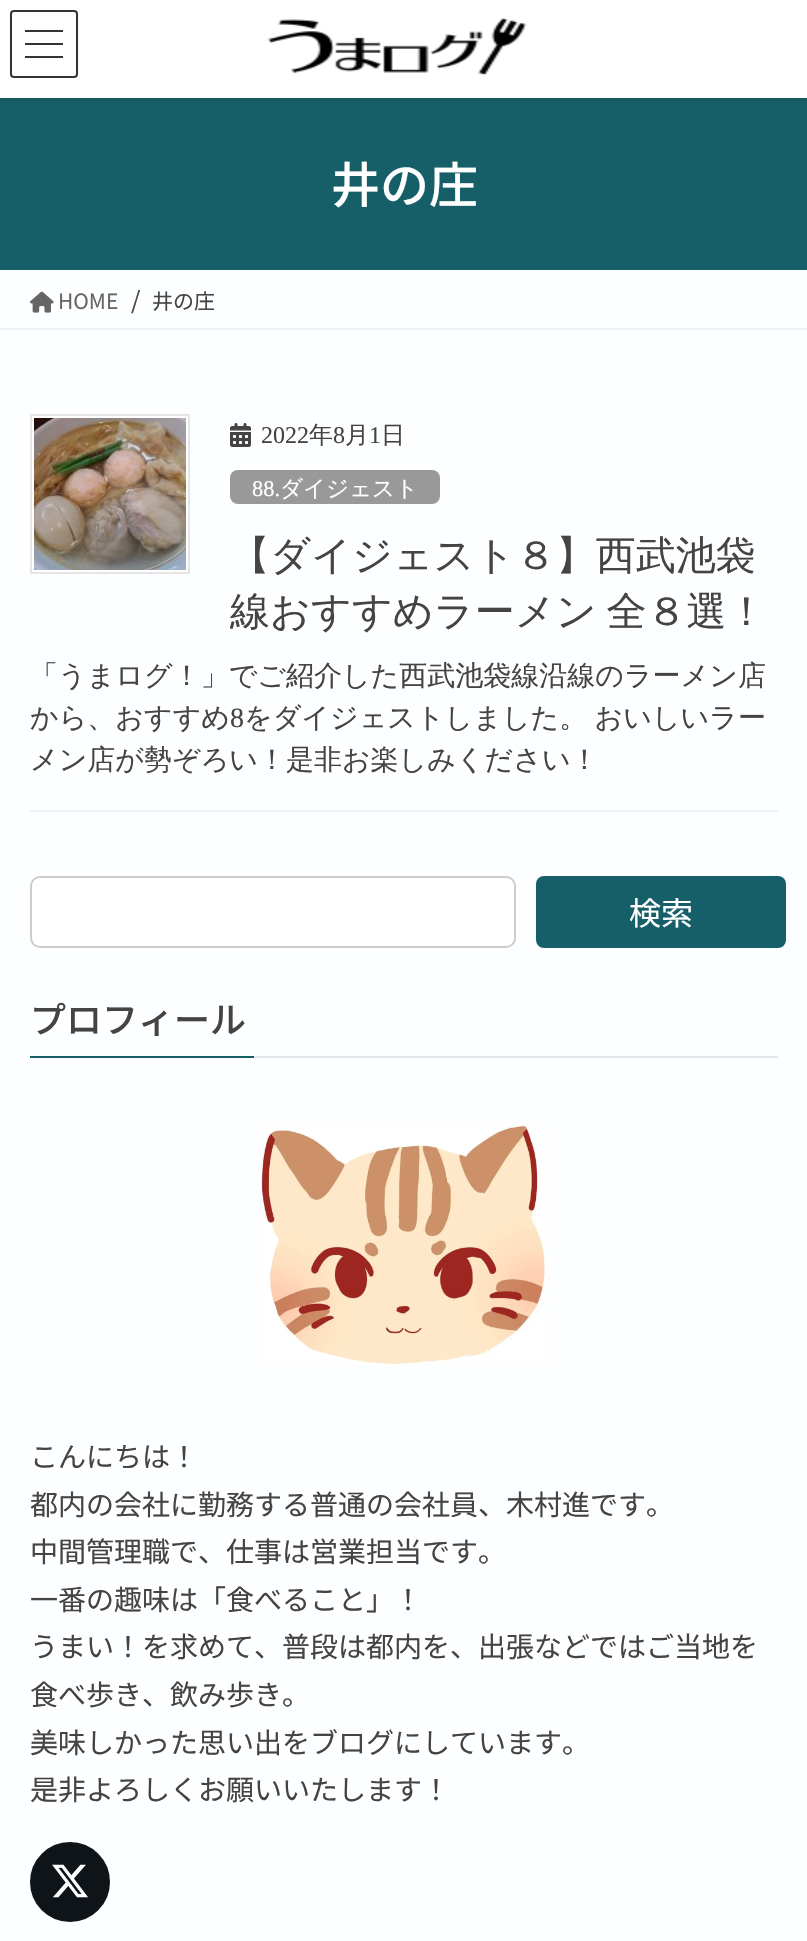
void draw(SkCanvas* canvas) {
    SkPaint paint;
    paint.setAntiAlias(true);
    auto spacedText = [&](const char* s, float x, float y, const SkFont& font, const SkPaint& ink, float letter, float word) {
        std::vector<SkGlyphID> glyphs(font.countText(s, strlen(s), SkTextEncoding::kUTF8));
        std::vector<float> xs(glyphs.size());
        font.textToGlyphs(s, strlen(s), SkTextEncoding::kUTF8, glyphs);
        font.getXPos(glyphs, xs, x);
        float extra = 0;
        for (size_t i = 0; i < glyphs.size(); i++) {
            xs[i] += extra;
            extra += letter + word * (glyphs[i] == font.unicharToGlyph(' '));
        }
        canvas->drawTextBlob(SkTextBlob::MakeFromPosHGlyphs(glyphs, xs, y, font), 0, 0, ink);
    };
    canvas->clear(0xFFFCFEFF);
    paint.setColor(0xFF175F68);
    canvas->drawRect(SkRect::MakeXYWH(0, 98, 807, 172), paint);
    paint.setColor(0x1A000000);
    paint.setMaskFilter(SkMaskFilter::MakeBlur(kNormal_SkBlurStyle, 3));
    canvas->drawRect(SkRect::MakeXYWH(0, 2, 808, 98), paint);
    paint.setMaskFilter(nullptr);
    paint.setColor(0xFFFFFFFF);
    canvas->drawRect(SkRect::MakeXYWH(0, 0, 807, 98), paint);
    canvas->drawImageRect(SkImages::DeferredFromEncodedData(SkData::MakeFromFileName("img1.png")), SkRect::MakeXYWH(267, 17, 260, 59), SkSamplingOptions());
    paint.setColor(0xFF333333);
    canvas->drawRect(SkRect::MakeXYWH(25, 30, 38, 2), paint);
    canvas->drawRect(SkRect::MakeXYWH(25, 43, 38, 2), paint);
    canvas->drawRect(SkRect::MakeXYWH(25, 56, 38, 2), paint);
    paint.setStyle(SkPaint::kStroke_Style);
    paint.setStrokeWidth(2);
    canvas->drawRoundRect(SkRect::MakeXYWH(11, 11, 66, 66), 3, 3, paint);
    SkFont font1(fontMgr->matchFamilyStyle("Noto Sans JP", SkFontStyle(500, SkFontStyle::kNormal_Width, SkFontStyle::kUpright_Slant)), 49);
    font1.setSubpixel(true);
    paint.setStyle(SkPaint::kFill_Style);
    paint.setColor(0xFFFFFFFF);
    canvas->drawString("井の庄", 331, 203, font1, paint);
    paint.setColor(0xFFEFF1F2);
    canvas->drawRect(SkRect::MakeXYWH(0, 328, 807, 2), paint);
    canvas->drawImageRect(SkImages::DeferredFromEncodedData(SkData::MakeFromFileName("img2.png")), SkRect::MakeXYWH(30, 291, 24, 22), SkSamplingOptions());
    SkFont font2(fontMgr->matchFamilyStyle("Noto Sans JP", SkFontStyle::Normal()), 21);
    font2.setSubpixel(true);
    paint.setColor(0xFF666666);
    canvas->drawString("HOME", 58, 309, font2, paint);
    SkFont font3(fontMgr->matchFamilyStyle("Noto Sans JP", SkFontStyle::Normal()), 24);
    font3.setSubpixel(true);
    paint.setColor(0xFF444444);
    canvas->drawString("/", 131, 309, font3, paint);
    canvas->drawString("井の庄", 152, 309, font2, paint);
    paint.setColor(0xFFEFF1F2);
    canvas->drawRect(SkRect::MakeXYWH(30, 810, 748, 2), paint);
    paint.setStyle(SkPaint::kStroke_Style);
    paint.setColor(0xFFE5E5E5);
    canvas->drawRect(SkRect::MakeXYWH(31, 415, 158, 158), paint);
    paint.setColor(0xFFFFFFFF);
    canvas->drawRect(SkRect::MakeXYWH(33, 417, 154, 154), paint);
    canvas->drawImageRect(SkImages::DeferredFromEncodedData(SkData::MakeFromFileName("img3.png")), SkRect::MakeXYWH(34, 418, 152, 152), SkSamplingOptions());
    canvas->drawImageRect(SkImages::DeferredFromEncodedData(SkData::MakeFromFileName("img4.png")), SkRect::MakeXYWH(230, 423, 21, 24), SkSamplingOptions());
    SkFont font4(fontMgr->matchFamilyStyle("Liberation Serif", SkFontStyle::Normal()), 24);
    font4.setSubpixel(true);
    paint.setStyle(SkPaint::kFill_Style);
    paint.setColor(0xFF444444);
    canvas->drawString("2022", 261, 443, font4, paint);
    SkFont font5(fontMgr->matchFamilyStyle("WenQuanYi Zen Hei", SkFontStyle(500, SkFontStyle::kNormal_Width, SkFontStyle::kUpright_Slant)), 24);
    font5.setSubpixel(true);
    canvas->drawString("年", 309, 443, font5, paint);
    canvas->drawString("8", 333, 443, font4, paint);
    canvas->drawString("月", 345, 443, font5, paint);
    canvas->drawString("1", 369, 443, font4, paint);
    canvas->drawString("日", 381, 443, font5, paint);
    paint.setColor(0xFF999999);
    canvas->drawRoundRect(SkRect::MakeXYWH(230, 470, 210, 34), 8, 8, paint);
    SkFont font6(fontMgr->matchFamilyStyle("Liberation Serif", SkFontStyle::Normal()), 22.5f);
    font6.setSubpixel(true);
    paint.setColor(0xFFFFFFFF);
    canvas->drawString("88.", 252, 496, font6, paint);
    SkFont font7(fontMgr->matchFamilyStyle("WenQuanYi Zen Hei", SkFontStyle(500, SkFontStyle::kNormal_Width, SkFontStyle::kUpright_Slant)), 22.5f);
    font7.setSubpixel(true);
    canvas->drawString("ダイジェスト", 280, 496, font7, paint);
    SkFont font8(fontMgr->matchFamilyStyle("WenQuanYi Zen Hei", SkFontStyle(500, SkFontStyle::kNormal_Width, SkFontStyle::kUpright_Slant)), 40);
    font8.setSubpixel(true);
    paint.setColor(0xFF444444);
    canvas->drawString("【ダイジェスト８】西武池袋", 230, 569, font8, paint);
    spacedText("線おすすめラーメン 全８選！", 230, 625, font8, paint, 0, -2);
    SkFont font9(fontMgr->matchFamilyStyle("WenQuanYi Zen Hei", SkFontStyle(500, SkFontStyle::kNormal_Width, SkFontStyle::kUpright_Slant)), 28);
    font9.setSubpixel(true);
    canvas->drawString("「うまログ！」でご紹介した西武池袋線沿線のラーメン店", 30, 685, font9, paint);
    canvas->drawString("から、おすすめ", 30, 727, font9, paint);
    SkFont font10(fontMgr->matchFamilyStyle("Liberation Serif", SkFontStyle::Normal()), 28);
    font10.setSubpixel(true);
    canvas->drawString("8", 230, 727, font10, paint);
    spacedText("をダイジェストしました。 おいしいラー", 244, 727, font9, paint, 0, -1);
    canvas->drawString("メン店が勢ぞろい！是非お楽しみください！", 30, 769, font9, paint);
    paint.setColor(0xFFFFFFFF);
    canvas->drawRoundRect(SkRect::MakeXYWH(31, 877, 484, 70), 9, 9, paint);
    paint.setStyle(SkPaint::kStroke_Style);
    paint.setColor(0xFFCCCCCC);
    canvas->drawRoundRect(SkRect::MakeXYWH(31, 877, 484, 70), 9, 9, paint);
    paint.setStyle(SkPaint::kFill_Style);
    paint.setColor(0xFF175F68);
    canvas->drawRoundRect(SkRect::MakeXYWH(536, 876, 250, 72), 8, 8, paint);
    SkFont font11(fontMgr->matchFamilyStyle("Noto Sans JP", SkFontStyle::Normal()), 32);
    font11.setSubpixel(true);
    paint.setColor(0xFFFFFFFF);
    canvas->drawString("検索", 629, 925, font11, paint);
    paint.setColor(0xFFE3E5E6);
    canvas->drawRect(SkRect::MakeXYWH(254, 1056, 524, 2), paint);
    SkFont font12(fontMgr->matchFamilyStyle("Noto Sans JP", SkFontStyle(500, SkFontStyle::kNormal_Width, SkFontStyle::kUpright_Slant)), 36);
    font12.setSubpixel(true);
    paint.setColor(0xFF444444);
    canvas->drawString("プロフィール", 30, 1033, font12, paint);
    paint.setColor(0xFF175F68);
    canvas->drawRect(SkRect::MakeXYWH(30, 1056, 224, 2), paint);
    canvas->drawImageRect(SkImages::DeferredFromEncodedData(SkData::MakeFromFileName("img5.png")), SkRect::MakeXYWH(261, 1125, 284, 240), SkSamplingOptions());
    SkFont font13(fontMgr->matchFamilyStyle("Noto Sans JP", SkFontStyle::Normal()), 28);
    font13.setSubpixel(true);
    paint.setColor(0xFF444444);
    canvas->drawString("こんにちは！", 30, 1467, font13, paint);
    canvas->drawString("都内の会社に勤務する普通の会社員、木村進です。", 30, 1515, font13, paint);
    canvas->drawString("中間管理職で、仕事は営業担当です。", 30, 1562, font13, paint);
    canvas->drawString("一番の趣味は「食べること」！", 30, 1610, font13, paint);
    canvas->drawString("うまい！を求めて、普段は都内を、出張などではご当地を", 30, 1657, font13, paint);
    canvas->drawString("食べ歩き、飲み歩き。", 30, 1705, font13, paint);
    canvas->drawString("美味しかった思い出をブログにしています。", 30, 1753, font13, paint);
    canvas->drawString("是非よろしくお願いいたします！", 30, 1800, font13, paint);
    paint.setColor(0xFF0F1419);
    canvas->drawCircle(70, 1882, 39, paint);
    paint.setStyle(SkPaint::kStroke_Style);
    canvas->drawCircle(70, 1882, 39, paint);
    canvas->drawImageRect(SkImages::DeferredFromEncodedData(SkData::MakeFromFileName("img6.png")), SkRect::MakeXYWH(52, 1864, 36, 34), SkSamplingOptions());
}
